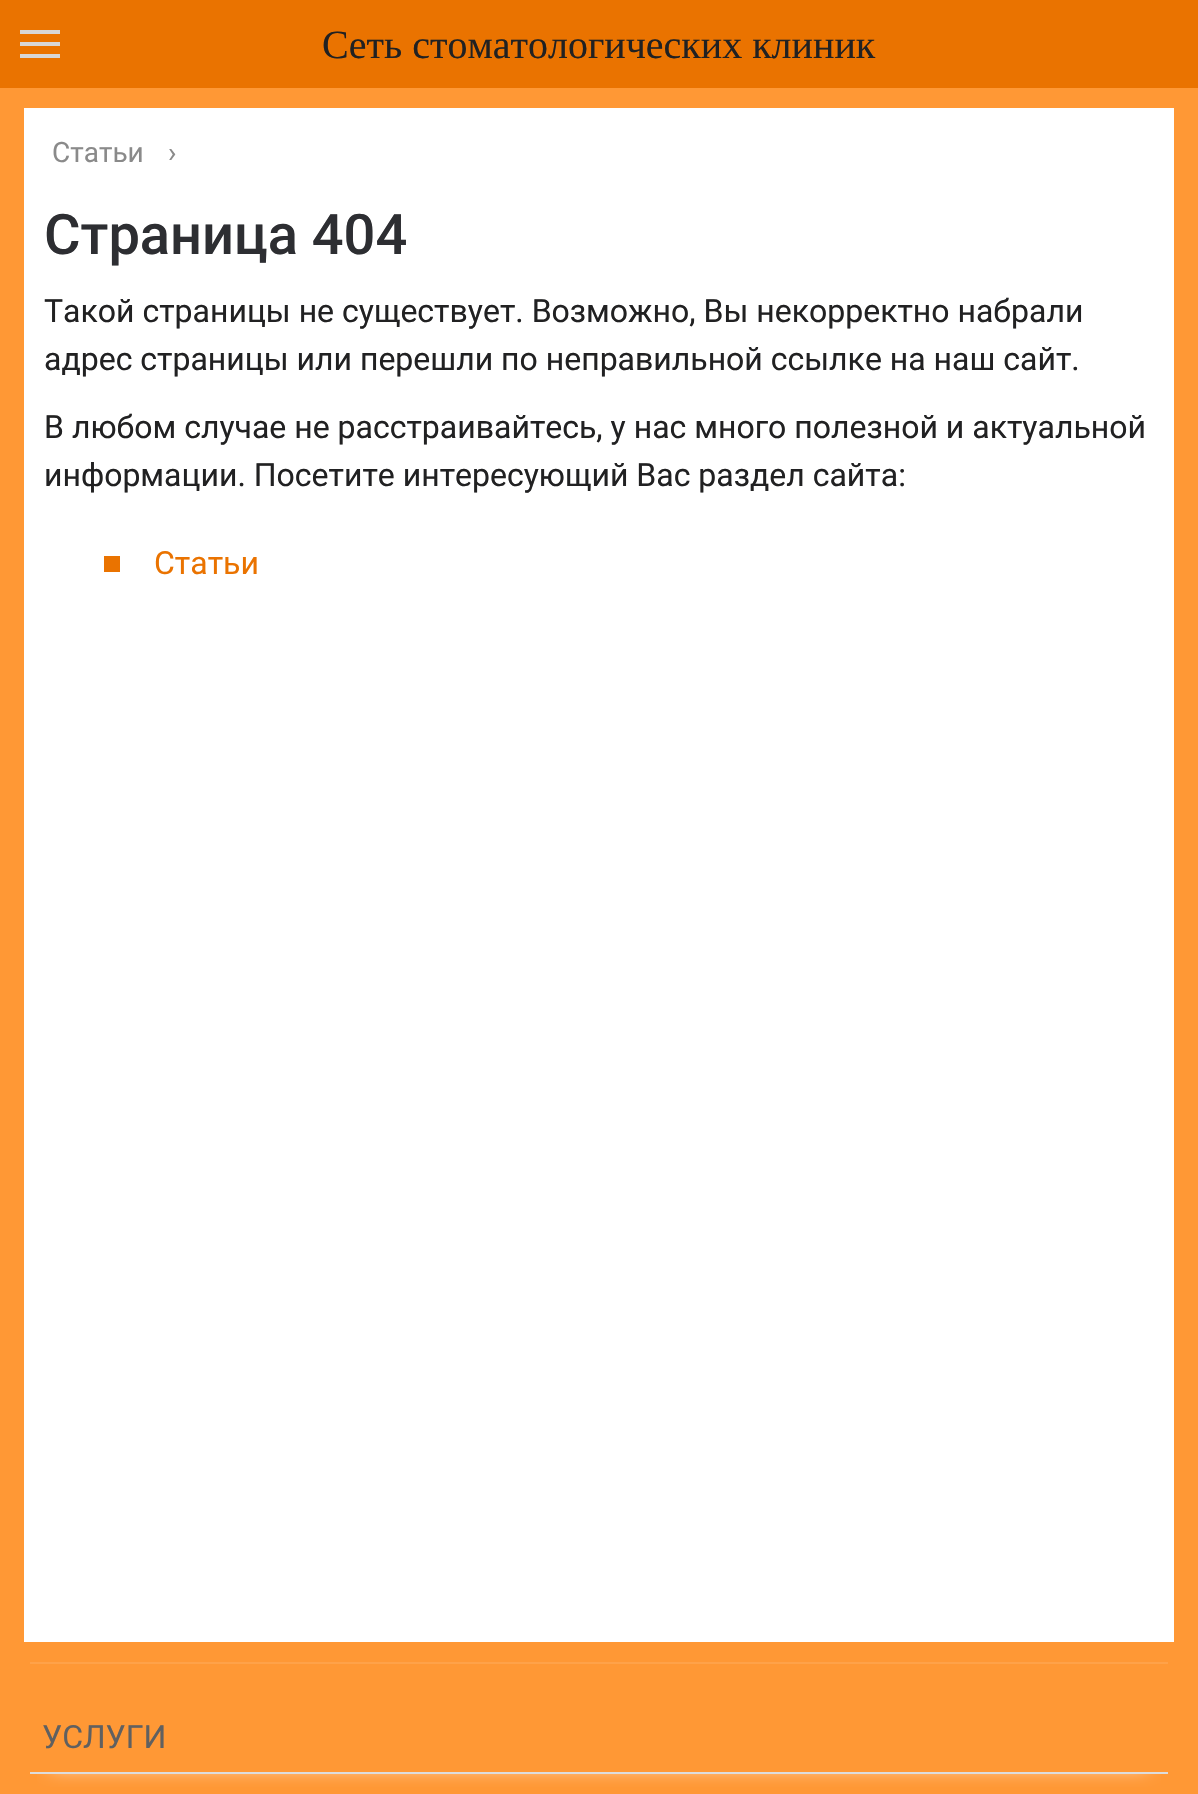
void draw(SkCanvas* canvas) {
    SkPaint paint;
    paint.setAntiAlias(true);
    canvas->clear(0xFFFF9835);
    paint.setColor(0xFFEA7300);
    canvas->drawRect(SkRect::MakeXYWH(0, 0, 1198, 88), paint);
    paint.setColor(0xFFD8D7D7);
    canvas->drawRect(SkRect::MakeXYWH(20, 30, 40, 4), paint);
    canvas->drawRect(SkRect::MakeXYWH(20, 42, 40, 4), paint);
    canvas->drawRect(SkRect::MakeXYWH(20, 54, 40, 4), paint);
    SkFont font1(fontMgr->matchFamilyStyle("Liberation Serif", SkFontStyle::Normal()), 40);
    font1.setSubpixel(true);
    paint.setColor(0xFF212122);
    canvas->drawString("Сеть стоматологических клиник", 322, 58, font1, paint);
    paint.setColor(0xFFFFFFFF);
    canvas->drawRect(SkRect::MakeXYWH(24, 108, 1150, 1534), paint);
    SkFont font2(fontMgr->matchFamilyStyle("Roboto", SkFontStyle::Normal()), 28);
    font2.setSubpixel(true);
    paint.setColor(0xFF8A8A8A);
    canvas->drawString("Статьи", 52, 162, font2, paint);
    canvas->drawString("›", 168, 162, font2, paint);
    SkFont font3(fontMgr->matchFamilyStyle("Roboto", SkFontStyle(500, SkFontStyle::kNormal_Width, SkFontStyle::kUpright_Slant)), 56);
    font3.setSubpixel(true);
    paint.setColor(0xFF2D2E32);
    canvas->drawString("Страница 404", 44, 254, font3, paint);
    SkFont font4(fontMgr->matchFamilyStyle("Roboto", SkFontStyle::Normal()), 32);
    font4.setSubpixel(true);
    paint.setColor(0xFF212122);
    canvas->drawString("Такой страницы не существует. Возможно, Вы некорректно набрали", 44, 322, font4, paint);
    canvas->drawString("адрес страницы или перешли по неправильной ссылке на наш сайт.", 44, 370, font4, paint);
    canvas->drawString("В любом случае не расстраивайтесь, у нас много полезной и актуальной", 44, 438, font4, paint);
    canvas->drawString("информации. Посетите интересующий Вас раздел сайта:", 44, 486, font4, paint);
    paint.setColor(0xFFEA7300);
    canvas->drawRect(SkRect::MakeXYWH(104, 556, 16, 16), paint);
    canvas->drawString("Статьи", 154, 574, font4, paint);
    paint.setColor(0xFFFFA249);
    canvas->drawRect(SkRect::MakeXYWH(30, 1662, 1138, 2), paint);
    canvas->save();
    canvas->clipRect(SkRect::MakeXYWH(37, 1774, 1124, 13));
    paint.setColor(0xFFFFFFFF);
    paint.setMaskFilter(SkMaskFilter::MakeBlur(kNormal_SkBlurStyle, 10));
    canvas->drawRect(SkRect::MakeXYWH(50, 1736, 1098, 30), paint);
    paint.setMaskFilter(nullptr);
    canvas->restore();
    paint.setColor(0xFFDDDDDD);
    canvas->drawRect(SkRect::MakeXYWH(30, 1772, 1138, 2), paint);
    paint.setColor(0xFF606060);
    canvas->drawString("УСЛУГИ", 42, 1748, font4, paint);
}
